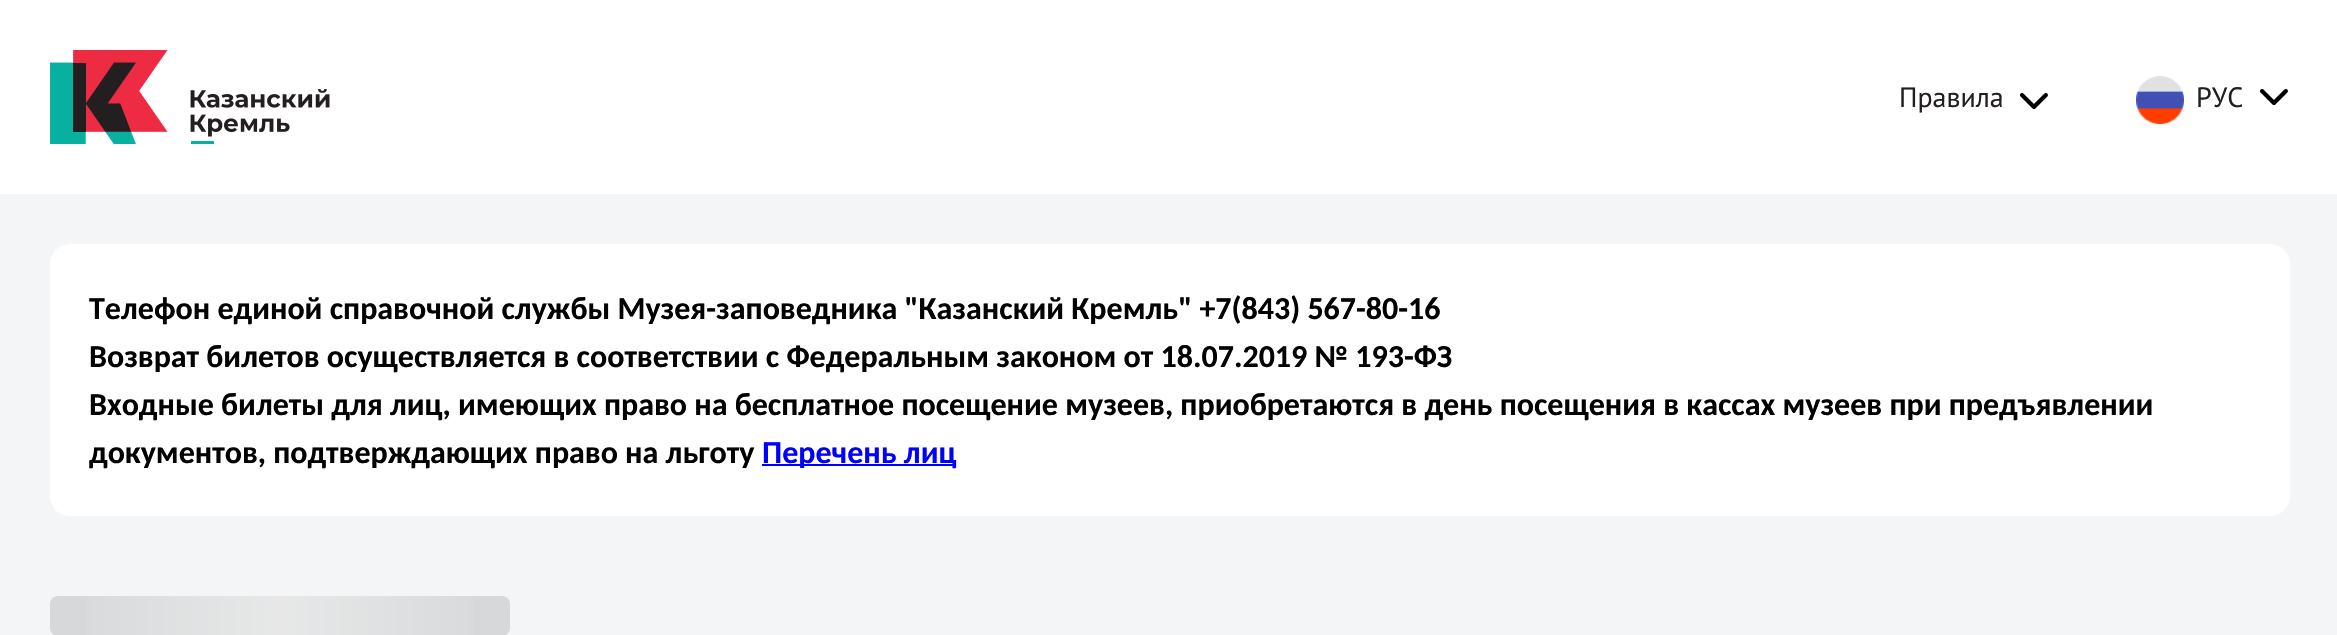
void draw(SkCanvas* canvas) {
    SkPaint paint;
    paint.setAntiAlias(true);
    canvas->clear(0xFFF4F5F7);
    paint.setColor(0xFFFFFFFF);
    canvas->drawRect(SkRect::MakeXYWH(0, 0, 2337, 194), paint);
    canvas->drawImageRect(SkImages::DeferredFromEncodedData(SkData::MakeFromFileName("img1.png")), SkRect::MakeXYWH(50, 50, 280, 94), SkSamplingOptions());
    SkFont font1(fontMgr->matchFamilyStyle("PT Sans", SkFontStyle::Normal()), 28);
    font1.setSubpixel(true);
    paint.setColor(0xFF231F20);
    canvas->drawString("Правила", 1899, 107, font1, paint);
    canvas->drawImageRect(SkImages::DeferredFromEncodedData(SkData::MakeFromFileName("img2.png")), SkRect::MakeXYWH(2020, 93, 28, 17), SkSamplingOptions());
    canvas->drawImageRect(SkImages::DeferredFromEncodedData(SkData::MakeFromFileName("img3.png")), SkRect::MakeXYWH(2136, 76, 48, 48), SkSamplingOptions());
    canvas->drawString("РУС", 2196, 107, font1, paint);
    canvas->drawImageRect(SkImages::DeferredFromEncodedData(SkData::MakeFromFileName("img2.png")), SkRect::MakeXYWH(2260, 89, 28, 17), SkSamplingOptions());
    paint.setColor(0xFFFFFFFF);
    canvas->drawRoundRect(SkRect::MakeXYWH(50, 244, 2240, 272), 20, 20, paint);
    SkFont font2(fontMgr->matchFamilyStyle("Carlito", SkFontStyle::Bold()), 32);
    font2.setSubpixel(true);
    paint.setColor(0xFF000000);
    canvas->drawString("Телефон единой справочной службы Музея-заповедника \"Казанский Кремль\" +7(843) 567-80-16", 89, 319, font2, paint);
    canvas->drawString("Возврат билетов осуществляется в соответствии с Федеральным законом от 18.07.2019 № 193-ФЗ", 89, 367, font2, paint);
    canvas->drawString("Входные билеты для лиц, имеющих право на бесплатное посещение музеев, приобретаются в день посещения в кассах музеев при предъявлении", 89, 415, font2, paint);
    canvas->drawString("документов, подтверждающих право на льготу", 89, 463, font2, paint);
    paint.setColor(0xFF0000FF);
    canvas->drawRect(SkRect::MakeXYWH(762, 464, 194, 2), paint);
    canvas->drawString("Перечень лиц", 762, 463, font2, paint);
    paint.setColor(0xFFD7D8D9);
    canvas->drawRoundRect(SkRect::MakeXYWH(50, 596, 460, 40), 8, 8, paint);
    {
        const SkColor colors[] = {0x00FFFFFF, 0x66FFFFFF, 0x00FFFFFF};
        const float stops[] = {0, 0.5f, 1};
        const SkPoint ends[] = {{50, 616}, {510, 616}};
        paint.setShader(SkGradientShader::MakeLinear(ends, colors, stops, 3, SkTileMode::kClamp));
        paint.setAlpha(255);
    }
    canvas->drawRect(SkRect::MakeXYWH(87, 596, 386, 39), paint);
}
